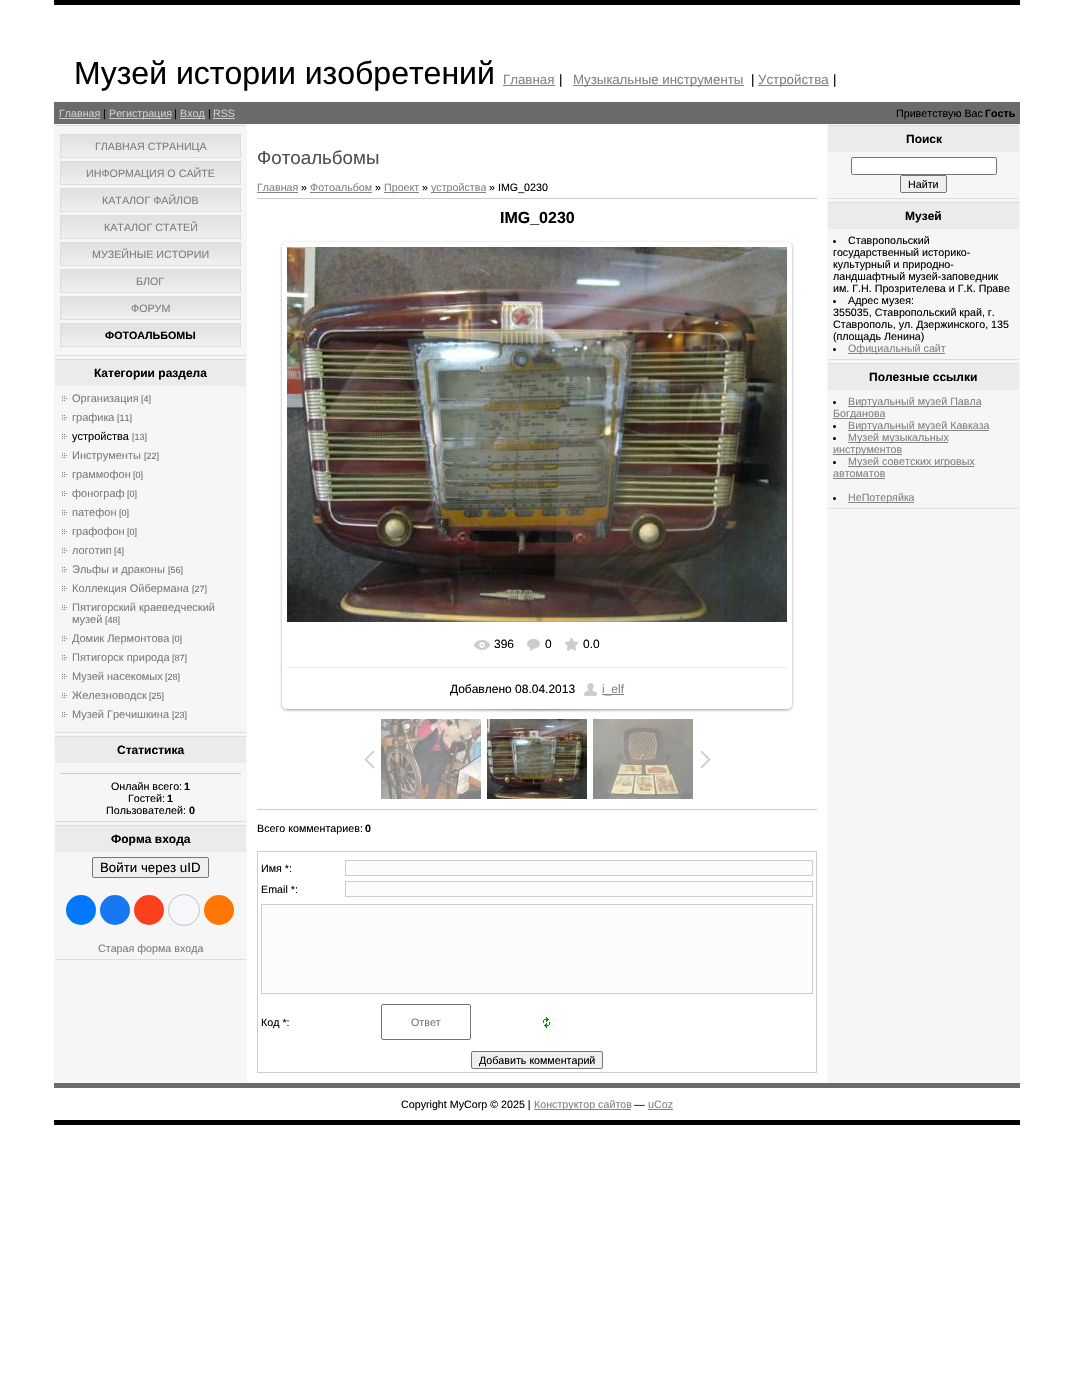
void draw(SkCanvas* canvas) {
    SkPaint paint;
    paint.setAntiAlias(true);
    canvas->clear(0xFFFFFFFF);
    paint.setColor(0xFF000000);
    canvas->drawRect(SkRect::MakeXYWH(54, 0, 966, 5), paint);
    SkFont font1(fontMgr->matchFamilyStyle("Liberation Sans", SkFontStyle::Normal()), 32);
    font1.setSubpixel(true);
    canvas->drawString("Музей истории изобретений", 74, 84, font1, paint);
    SkFont font2(fontMgr->matchFamilyStyle("Liberation Sans", SkFontStyle::Normal()), 13.3f);
    font2.setSubpixel(true);
    paint.setColor(0xFF838383);
    canvas->drawString("Главная", 503, 84, font2, paint);
    canvas->drawRect(SkRect::MakeXYWH(503, 85, 52, 1), paint);
    paint.setColor(0xFF000000);
    canvas->drawString("|", 559, 84, font2, paint);
    paint.setColor(0xFF838383);
    canvas->drawRect(SkRect::MakeXYWH(573, 85, 171, 1), paint);
    canvas->drawString("Музыкальные инструменты", 573, 84, font2, paint);
    paint.setColor(0xFF000000);
    canvas->drawString("|", 751, 84, font2, paint);
    paint.setColor(0xFF838383);
    canvas->drawRect(SkRect::MakeXYWH(758, 85, 71, 1), paint);
    canvas->drawString("Устройства", 758, 84, font2, paint);
    paint.setColor(0xFF000000);
    canvas->drawString("|", 833, 84, font2, paint);
    paint.setColor(0xFF6B6B6B);
    canvas->drawRect(SkRect::MakeXYWH(54, 102, 966, 22), paint);
    SkFont font3(fontMgr->matchFamilyStyle("Liberation Sans", SkFontStyle::Normal()), 10.7f);
    font3.setSubpixel(true);
    paint.setColor(0xFFCCCCCC);
    canvas->drawString("Главная", 59, 117, font3, paint);
    canvas->drawRect(SkRect::MakeXYWH(59, 118, 41, 1), paint);
    paint.setColor(0xFF000000);
    canvas->drawString("|", 103, 117, font3, paint);
    paint.setColor(0xFFCCCCCC);
    canvas->drawRect(SkRect::MakeXYWH(109, 118, 62, 1), paint);
    canvas->drawString("Регистрация", 109, 117, font3, paint);
    paint.setColor(0xFF000000);
    canvas->drawString("|", 174, 117, font3, paint);
    paint.setColor(0xFFCCCCCC);
    canvas->drawRect(SkRect::MakeXYWH(180, 118, 25, 1), paint);
    canvas->drawString("Вход", 180, 117, font3, paint);
    paint.setColor(0xFF000000);
    canvas->drawString("|", 208, 117, font3, paint);
    paint.setColor(0xFFCCCCCC);
    canvas->drawString("RSS", 213, 117, font3, paint);
    canvas->drawRect(SkRect::MakeXYWH(213, 118, 22, 1), paint);
    paint.setColor(0xFF000000);
    canvas->drawString("Приветствую Вас", 896, 117, font3, paint);
    SkFont font4(fontMgr->matchFamilyStyle("Liberation Sans", SkFontStyle::Bold()), 10.7f);
    font4.setSubpixel(true);
    canvas->drawString("Гость", 985, 117, font4, paint);
    paint.setColor(0xFFF6F6F6);
    canvas->drawRect(SkRect::MakeXYWH(54, 124, 193, 959), paint);
    paint.setColor(0xFFDDDDDD);
    canvas->drawRect(SkRect::MakeXYWH(55, 125, 191, 1), paint);
    canvas->drawRect(SkRect::MakeXYWH(55, 355, 191, 1), paint);
    canvas->drawImageRect(SkImages::DeferredFromEncodedData(SkData::MakeFromFileName("img1.png")), SkRect::MakeXYWH(61, 135, 179, 22), SkSamplingOptions());
    paint.setStyle(SkPaint::kStroke_Style);
    paint.setStrokeWidth(1);
    canvas->drawRect(SkRect::MakeXYWH(60.5f, 134.5f, 180, 23), paint);
    paint.setStyle(SkPaint::kFill_Style);
    paint.setColor(0xFF7D7D7D);
    canvas->drawString("ГЛАВНАЯ СТРАНИЦА", 95, 150, font3, paint);
    canvas->drawImageRect(SkImages::DeferredFromEncodedData(SkData::MakeFromFileName("img1.png")), SkRect::MakeXYWH(61, 162, 179, 22), SkSamplingOptions());
    paint.setStyle(SkPaint::kStroke_Style);
    paint.setColor(0xFFDDDDDD);
    canvas->drawRect(SkRect::MakeXYWH(60.5f, 161.5f, 180, 23), paint);
    paint.setStyle(SkPaint::kFill_Style);
    paint.setColor(0xFF7D7D7D);
    canvas->drawString("ИНФОРМАЦИЯ О САЙТЕ", 86, 177, font3, paint);
    canvas->drawImageRect(SkImages::DeferredFromEncodedData(SkData::MakeFromFileName("img1.png")), SkRect::MakeXYWH(61, 189, 179, 22), SkSamplingOptions());
    paint.setStyle(SkPaint::kStroke_Style);
    paint.setColor(0xFFDDDDDD);
    canvas->drawRect(SkRect::MakeXYWH(60.5f, 188.5f, 180, 23), paint);
    paint.setStyle(SkPaint::kFill_Style);
    paint.setColor(0xFF7D7D7D);
    canvas->drawString("КАТАЛОГ ФАЙЛОВ", 102, 204, font3, paint);
    canvas->drawImageRect(SkImages::DeferredFromEncodedData(SkData::MakeFromFileName("img1.png")), SkRect::MakeXYWH(61, 216, 179, 22), SkSamplingOptions());
    paint.setStyle(SkPaint::kStroke_Style);
    paint.setColor(0xFFDDDDDD);
    canvas->drawRect(SkRect::MakeXYWH(60.5f, 215.5f, 180, 23), paint);
    paint.setStyle(SkPaint::kFill_Style);
    paint.setColor(0xFF7D7D7D);
    canvas->drawString("КАТАЛОГ СТАТЕЙ", 104, 231, font3, paint);
    canvas->drawImageRect(SkImages::DeferredFromEncodedData(SkData::MakeFromFileName("img1.png")), SkRect::MakeXYWH(61, 243, 179, 22), SkSamplingOptions());
    paint.setStyle(SkPaint::kStroke_Style);
    paint.setColor(0xFFDDDDDD);
    canvas->drawRect(SkRect::MakeXYWH(60.5f, 242.5f, 180, 23), paint);
    paint.setStyle(SkPaint::kFill_Style);
    paint.setColor(0xFF7D7D7D);
    canvas->drawString("МУЗЕЙНЫЕ ИСТОРИИ", 92, 258, font3, paint);
    canvas->drawImageRect(SkImages::DeferredFromEncodedData(SkData::MakeFromFileName("img1.png")), SkRect::MakeXYWH(61, 270, 179, 22), SkSamplingOptions());
    paint.setStyle(SkPaint::kStroke_Style);
    paint.setColor(0xFFDDDDDD);
    canvas->drawRect(SkRect::MakeXYWH(60.5f, 269.5f, 180, 23), paint);
    paint.setStyle(SkPaint::kFill_Style);
    paint.setColor(0xFF7D7D7D);
    canvas->drawString("БЛОГ", 136, 285, font3, paint);
    canvas->drawImageRect(SkImages::DeferredFromEncodedData(SkData::MakeFromFileName("img1.png")), SkRect::MakeXYWH(61, 297, 179, 22), SkSamplingOptions());
    paint.setStyle(SkPaint::kStroke_Style);
    paint.setColor(0xFFDDDDDD);
    canvas->drawRect(SkRect::MakeXYWH(60.5f, 296.5f, 180, 23), paint);
    paint.setStyle(SkPaint::kFill_Style);
    paint.setColor(0xFF7D7D7D);
    canvas->drawString("ФОРУМ", 131, 312, font3, paint);
    canvas->drawImageRect(SkImages::DeferredFromEncodedData(SkData::MakeFromFileName("img1.png")), SkRect::MakeXYWH(61, 324, 179, 22), SkSamplingOptions());
    paint.setStyle(SkPaint::kStroke_Style);
    paint.setColor(0xFFDDDDDD);
    canvas->drawRect(SkRect::MakeXYWH(60.5f, 323.5f, 180, 23), paint);
    paint.setStyle(SkPaint::kFill_Style);
    paint.setColor(0xFF000000);
    canvas->drawString("ФОТОАЛЬБОМЫ", 105, 339, font4, paint);
    paint.setColor(0xFFDDDDDD);
    canvas->drawRect(SkRect::MakeXYWH(55, 359, 191, 1), paint);
    canvas->drawRect(SkRect::MakeXYWH(55, 732, 191, 1), paint);
    paint.setColor(0xFFEBEBEB);
    canvas->drawRect(SkRect::MakeXYWH(55, 360, 191, 26), paint);
    SkFont font5(fontMgr->matchFamilyStyle("Liberation Sans", SkFontStyle::Bold()), 12);
    font5.setSubpixel(true);
    paint.setColor(0xFF000000);
    canvas->drawString("Категории раздела", 94, 377, font5, paint);
    canvas->drawImageRect(SkImages::DeferredFromEncodedData(SkData::MakeFromFileName("img2.png")), SkRect::MakeXYWH(62, 396, 6, 6), SkSamplingOptions());
    SkFont font6(fontMgr->matchFamilyStyle("Liberation Sans", SkFontStyle::Normal()), 11);
    font6.setSubpixel(true);
    paint.setColor(0xFF7D7D7D);
    canvas->drawString("Организация", 72, 402, font6, paint);
    SkFont font7(fontMgr->matchFamilyStyle("Liberation Sans", SkFontStyle::Normal()), 9);
    font7.setSubpixel(true);
    paint.setColor(0xFF6E6E6E);
    canvas->drawString("[4]", 141, 402, font7, paint);
    canvas->drawImageRect(SkImages::DeferredFromEncodedData(SkData::MakeFromFileName("img2.png")), SkRect::MakeXYWH(62, 415, 6, 6), SkSamplingOptions());
    paint.setColor(0xFF7D7D7D);
    canvas->drawString("графика", 72, 421, font6, paint);
    paint.setColor(0xFF6E6E6E);
    canvas->drawString("[11]", 117, 421, font7, paint);
    canvas->drawImageRect(SkImages::DeferredFromEncodedData(SkData::MakeFromFileName("img2.png")), SkRect::MakeXYWH(62, 434, 6, 6), SkSamplingOptions());
    paint.setColor(0xFF000000);
    canvas->drawString("устройства", 72, 440, font6, paint);
    paint.setColor(0xFF6E6E6E);
    canvas->drawString("[13]", 132, 440, font7, paint);
    canvas->drawImageRect(SkImages::DeferredFromEncodedData(SkData::MakeFromFileName("img2.png")), SkRect::MakeXYWH(62, 453, 6, 6), SkSamplingOptions());
    paint.setColor(0xFF7D7D7D);
    canvas->drawString("Инструменты", 72, 459, font6, paint);
    paint.setColor(0xFF6E6E6E);
    canvas->drawString("[22]", 144, 459, font7, paint);
    canvas->drawImageRect(SkImages::DeferredFromEncodedData(SkData::MakeFromFileName("img2.png")), SkRect::MakeXYWH(62, 472, 6, 6), SkSamplingOptions());
    paint.setColor(0xFF7D7D7D);
    canvas->drawString("граммофон", 72, 478, font6, paint);
    paint.setColor(0xFF6E6E6E);
    canvas->drawString("[0]", 133, 478, font7, paint);
    canvas->drawImageRect(SkImages::DeferredFromEncodedData(SkData::MakeFromFileName("img2.png")), SkRect::MakeXYWH(62, 491, 6, 6), SkSamplingOptions());
    paint.setColor(0xFF7D7D7D);
    canvas->drawString("фонограф", 72, 497, font6, paint);
    paint.setColor(0xFF6E6E6E);
    canvas->drawString("[0]", 127, 497, font7, paint);
    canvas->drawImageRect(SkImages::DeferredFromEncodedData(SkData::MakeFromFileName("img2.png")), SkRect::MakeXYWH(62, 510, 6, 6), SkSamplingOptions());
    paint.setColor(0xFF7D7D7D);
    canvas->drawString("патефон", 72, 516, font6, paint);
    paint.setColor(0xFF6E6E6E);
    canvas->drawString("[0]", 119, 516, font7, paint);
    canvas->drawImageRect(SkImages::DeferredFromEncodedData(SkData::MakeFromFileName("img2.png")), SkRect::MakeXYWH(62, 529, 6, 6), SkSamplingOptions());
    paint.setColor(0xFF7D7D7D);
    canvas->drawString("графофон", 72, 535, font6, paint);
    paint.setColor(0xFF6E6E6E);
    canvas->drawString("[0]", 127, 535, font7, paint);
    canvas->drawImageRect(SkImages::DeferredFromEncodedData(SkData::MakeFromFileName("img2.png")), SkRect::MakeXYWH(62, 548, 6, 6), SkSamplingOptions());
    paint.setColor(0xFF7D7D7D);
    canvas->drawString("логотип", 72, 554, font6, paint);
    paint.setColor(0xFF6E6E6E);
    canvas->drawString("[4]", 114, 554, font7, paint);
    canvas->drawImageRect(SkImages::DeferredFromEncodedData(SkData::MakeFromFileName("img2.png")), SkRect::MakeXYWH(62, 567, 6, 6), SkSamplingOptions());
    paint.setColor(0xFF7D7D7D);
    canvas->drawString("Эльфы и драконы", 72, 573, font6, paint);
    paint.setColor(0xFF6E6E6E);
    canvas->drawString("[56]", 168, 573, font7, paint);
    canvas->drawImageRect(SkImages::DeferredFromEncodedData(SkData::MakeFromFileName("img2.png")), SkRect::MakeXYWH(62, 586, 6, 6), SkSamplingOptions());
    paint.setColor(0xFF7D7D7D);
    canvas->drawString("Коллекция Ойбермана", 72, 592, font6, paint);
    paint.setColor(0xFF6E6E6E);
    canvas->drawString("[27]", 192, 592, font7, paint);
    canvas->drawImageRect(SkImages::DeferredFromEncodedData(SkData::MakeFromFileName("img2.png")), SkRect::MakeXYWH(62, 605, 6, 6), SkSamplingOptions());
    paint.setColor(0xFF7D7D7D);
    canvas->drawString("Пятигорский краеведческий", 72, 611, font6, paint);
    canvas->drawString("музей", 72, 623, font6, paint);
    paint.setColor(0xFF6E6E6E);
    canvas->drawString("[48]", 105, 623, font7, paint);
    canvas->drawImageRect(SkImages::DeferredFromEncodedData(SkData::MakeFromFileName("img2.png")), SkRect::MakeXYWH(62, 636, 6, 6), SkSamplingOptions());
    paint.setColor(0xFF7D7D7D);
    canvas->drawString("Домик Лермонтова", 72, 642, font6, paint);
    paint.setColor(0xFF6E6E6E);
    canvas->drawString("[0]", 172, 642, font7, paint);
    canvas->drawImageRect(SkImages::DeferredFromEncodedData(SkData::MakeFromFileName("img2.png")), SkRect::MakeXYWH(62, 655, 6, 6), SkSamplingOptions());
    paint.setColor(0xFF7D7D7D);
    canvas->drawString("Пятигорск природа", 72, 661, font6, paint);
    paint.setColor(0xFF6E6E6E);
    canvas->drawString("[87]", 172, 661, font7, paint);
    canvas->drawImageRect(SkImages::DeferredFromEncodedData(SkData::MakeFromFileName("img2.png")), SkRect::MakeXYWH(62, 674, 6, 6), SkSamplingOptions());
    paint.setColor(0xFF7D7D7D);
    canvas->drawString("Музей насекомых", 72, 680, font6, paint);
    paint.setColor(0xFF6E6E6E);
    canvas->drawString("[28]", 165, 680, font7, paint);
    canvas->drawImageRect(SkImages::DeferredFromEncodedData(SkData::MakeFromFileName("img2.png")), SkRect::MakeXYWH(62, 693, 6, 6), SkSamplingOptions());
    paint.setColor(0xFF7D7D7D);
    canvas->drawString("Железноводск", 72, 699, font6, paint);
    paint.setColor(0xFF6E6E6E);
    canvas->drawString("[25]", 149, 699, font7, paint);
    canvas->drawImageRect(SkImages::DeferredFromEncodedData(SkData::MakeFromFileName("img2.png")), SkRect::MakeXYWH(62, 712, 6, 6), SkSamplingOptions());
    paint.setColor(0xFF7D7D7D);
    canvas->drawString("Музей Гречишкина", 72, 718, font6, paint);
    paint.setColor(0xFF6E6E6E);
    canvas->drawString("[23]", 172, 718, font7, paint);
    paint.setColor(0xFFDDDDDD);
    canvas->drawRect(SkRect::MakeXYWH(55, 736, 191, 1), paint);
    canvas->drawRect(SkRect::MakeXYWH(55, 821, 191, 1), paint);
    paint.setColor(0xFFEBEBEB);
    canvas->drawRect(SkRect::MakeXYWH(55, 737, 191, 26), paint);
    paint.setColor(0xFF000000);
    canvas->drawString("Статистика", 117, 754, font5, paint);
    paint.setColor(0xFFCCCCCC);
    canvas->drawRect(SkRect::MakeXYWH(60, 773, 181, 1), paint);
    paint.setColor(0xFF000000);
    canvas->drawString("Онлайн всего:", 111, 790, font3, paint);
    canvas->drawString("1", 184, 790, font4, paint);
    canvas->drawString("Гостей:", 128, 802, font3, paint);
    canvas->drawString("1", 167, 802, font4, paint);
    canvas->drawString("Пользователей:", 106, 814, font3, paint);
    canvas->drawString("0", 189, 814, font4, paint);
    paint.setColor(0xFFDDDDDD);
    canvas->drawRect(SkRect::MakeXYWH(55, 825, 191, 1), paint);
    canvas->drawRect(SkRect::MakeXYWH(55, 959, 191, 1), paint);
    paint.setColor(0xFFEBEBEB);
    canvas->drawRect(SkRect::MakeXYWH(55, 826, 191, 26), paint);
    paint.setColor(0xFF000000);
    canvas->drawString("Форма входа", 111, 843, font5, paint);
    paint.setColor(0xFFEFEFEF);
    canvas->drawRoundRect(SkRect::MakeXYWH(92.5f, 857.5f, 116, 20), 1.5f, 1.5f, paint);
    paint.setStyle(SkPaint::kStroke_Style);
    paint.setColor(0xFF767676);
    canvas->drawRoundRect(SkRect::MakeXYWH(92.5f, 857.5f, 116, 20), 1.5f, 1.5f, paint);
    paint.setStyle(SkPaint::kFill_Style);
    paint.setColor(0xFF000000);
    canvas->drawString("Войти через uID", 100, 872, font2, paint);
    paint.setColor(0xFF0077FF);
    canvas->drawCircle(81, 910, 15, paint);
    paint.setColor(0xFF1877F2);
    canvas->drawCircle(115, 910, 15, paint);
    paint.setColor(0xFFFC3F1D);
    canvas->drawCircle(149, 910, 15, paint);
    paint.setColor(0xFFF8F8FC);
    canvas->drawCircle(184, 910, 15.5f, paint);
    paint.setStyle(SkPaint::kStroke_Style);
    paint.setColor(0xFFC4C4C4);
    canvas->drawCircle(184, 910, 15.5f, paint);
    paint.setStyle(SkPaint::kFill_Style);
    paint.setColor(0xFFFF7700);
    canvas->drawCircle(219, 910, 15, paint);
    paint.setColor(0xFF7D7D7D);
    canvas->drawString("Старая форма входа", 98, 952, font3, paint);
    SkFont font8(fontMgr->matchFamilyStyle("Liberation Sans", SkFontStyle::Normal()), 18.75f);
    font8.setSubpixel(true);
    paint.setColor(0xFF505050);
    canvas->drawString("Фотоальбомы", 257, 164, font8, paint);
    paint.setColor(0xFF838383);
    canvas->drawString("Главная", 257, 191, font3, paint);
    canvas->drawRect(SkRect::MakeXYWH(257, 192, 41, 1), paint);
    paint.setColor(0xFF000000);
    canvas->drawString("»", 301, 191, font3, paint);
    paint.setColor(0xFF838383);
    canvas->drawString("Фотоальбом", 310, 191, font3, paint);
    canvas->drawRect(SkRect::MakeXYWH(310, 192, 62, 1), paint);
    paint.setColor(0xFF000000);
    canvas->drawString("»", 375, 191, font3, paint);
    paint.setColor(0xFF838383);
    canvas->drawRect(SkRect::MakeXYWH(384, 192, 35, 1), paint);
    canvas->drawString("Проект", 384, 191, font3, paint);
    paint.setColor(0xFF000000);
    canvas->drawString("»", 422, 191, font3, paint);
    paint.setColor(0xFF838383);
    canvas->drawRect(SkRect::MakeXYWH(431, 192, 55, 1), paint);
    canvas->drawString("устройства", 431, 191, font3, paint);
    paint.setColor(0xFF000000);
    canvas->drawString("» IMG_0230", 489, 191, font3, paint);
    paint.setColor(0xFFCCCCCC);
    canvas->drawRect(SkRect::MakeXYWH(257, 198, 560, 1), paint);
    SkFont font9(fontMgr->matchFamilyStyle("Liberation Sans", SkFontStyle::Bold()), 16);
    font9.setSubpixel(true);
    paint.setColor(0xFF000000);
    canvas->drawString("IMG_0230", 500, 223, font9, paint);
    canvas->save();
    canvas->clipPath(SkPathBuilder(SkPathFillType::kEvenOdd).moveTo(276, 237).lineTo(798, 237).lineTo(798, 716).lineTo(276, 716).close().moveTo(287, 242).lineTo(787, 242).cubicTo(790, 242, 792, 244, 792, 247).lineTo(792, 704).cubicTo(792, 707, 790, 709, 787, 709).lineTo(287, 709).cubicTo(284, 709, 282, 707, 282, 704).lineTo(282, 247).cubicTo(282, 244, 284, 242, 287, 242).close().detach(), true);
    paint.setColor(0x5E000000);
    paint.setMaskFilter(SkMaskFilter::MakeBlur(kNormal_SkBlurStyle, 1.5f));
    canvas->drawRoundRect(SkRect::MakeXYWH(282, 243, 510, 467), 5, 5, paint);
    paint.setMaskFilter(nullptr);
    canvas->restore();
    canvas->drawImageRect(SkImages::DeferredFromEncodedData(SkData::MakeFromFileName("img3.png")), SkRect::MakeXYWH(287, 247, 500, 375), SkSamplingOptions());
    canvas->drawImageRect(SkImages::DeferredFromEncodedData(SkData::MakeFromFileName("img4.png")), SkRect::MakeXYWH(474, 640, 16, 10), SkSamplingOptions());
    SkFont font10(fontMgr->matchFamilyStyle("Liberation Sans", SkFontStyle::Normal()), 12);
    font10.setSubpixel(true);
    paint.setColor(0xFF000000);
    canvas->drawString("396", 494, 648, font10, paint);
    canvas->drawImageRect(SkImages::DeferredFromEncodedData(SkData::MakeFromFileName("img5.png")), SkRect::MakeXYWH(527, 639, 13, 12), SkSamplingOptions());
    canvas->drawString("0", 545, 648, font10, paint);
    canvas->drawImageRect(SkImages::DeferredFromEncodedData(SkData::MakeFromFileName("img6.png")), SkRect::MakeXYWH(565, 638, 13, 13), SkSamplingOptions());
    canvas->drawString("0.0", 583, 648, font10, paint);
    canvas->drawImageRect(SkImages::DeferredFromEncodedData(SkData::MakeFromFileName("img7.png")), SkRect::MakeXYWH(287, 667, 500, 1), SkSamplingOptions());
    canvas->drawString("Добавлено 08.04.2013", 450, 693, font10, paint);
    canvas->drawImageRect(SkImages::DeferredFromEncodedData(SkData::MakeFromFileName("img8.png")), SkRect::MakeXYWH(584, 683, 13, 13), SkSamplingOptions());
    paint.setColor(0xFF838383);
    canvas->drawRect(SkRect::MakeXYWH(602, 694, 22, 1), paint);
    canvas->drawString("i_elf", 602, 693, font10, paint);
    canvas->drawImageRect(SkImages::DeferredFromEncodedData(SkData::MakeFromFileName("img9.png")), SkRect::MakeXYWH(457, 709, 161, 3), SkSamplingOptions());
    canvas->drawImageRect(SkImages::DeferredFromEncodedData(SkData::MakeFromFileName("img10.png")), SkRect::MakeXYWH(364, 751, 11, 17), SkSamplingOptions());
    canvas->drawImageRect(SkImages::DeferredFromEncodedData(SkData::MakeFromFileName("img11.png")), SkRect::MakeXYWH(381, 719, 100, 80), SkSamplingOptions());
    canvas->drawImageRect(SkImages::DeferredFromEncodedData(SkData::MakeFromFileName("img12.png")), SkRect::MakeXYWH(487, 719, 100, 80), SkSamplingOptions());
    canvas->drawImageRect(SkImages::DeferredFromEncodedData(SkData::MakeFromFileName("img13.png")), SkRect::MakeXYWH(593, 719, 100, 80), SkSamplingOptions());
    canvas->drawImageRect(SkImages::DeferredFromEncodedData(SkData::MakeFromFileName("img14.png")), SkRect::MakeXYWH(700, 751, 11, 17), SkSamplingOptions());
    paint.setColor(0xFFCCCCCC);
    canvas->drawRect(SkRect::MakeXYWH(257, 809, 560, 1), paint);
    paint.setColor(0xFF000000);
    canvas->drawString("Всего комментариев:", 257, 832, font3, paint);
    canvas->drawString("0", 365, 832, font4, paint);
    paint.setStyle(SkPaint::kStroke_Style);
    paint.setColor(0xFFCCCCCC);
    canvas->drawRect(SkRect::MakeXYWH(257.5f, 851.5f, 559, 221), paint);
    paint.setStyle(SkPaint::kFill_Style);
    paint.setColor(0xFF000000);
    canvas->drawString("Имя *:", 261, 872, font3, paint);
    paint.setColor(0xFFFCFCFC);
    canvas->drawRect(SkRect::MakeXYWH(345.5f, 860.5f, 467, 15), paint);
    paint.setStyle(SkPaint::kStroke_Style);
    paint.setColor(0xFFCCCCCC);
    canvas->drawRect(SkRect::MakeXYWH(345.5f, 860.5f, 467, 15), paint);
    paint.setStyle(SkPaint::kFill_Style);
    paint.setColor(0xFF000000);
    canvas->drawString("Email *:", 261, 893, font3, paint);
    paint.setColor(0xFFFCFCFC);
    canvas->drawRect(SkRect::MakeXYWH(345.5f, 881.5f, 467, 15), paint);
    paint.setStyle(SkPaint::kStroke_Style);
    paint.setColor(0xFFCCCCCC);
    canvas->drawRect(SkRect::MakeXYWH(345.5f, 881.5f, 467, 15), paint);
    paint.setStyle(SkPaint::kFill_Style);
    paint.setColor(0xFFFCFCFC);
    canvas->drawRect(SkRect::MakeXYWH(261.5f, 904.5f, 551, 89), paint);
    paint.setStyle(SkPaint::kStroke_Style);
    paint.setColor(0xFFCCCCCC);
    canvas->drawRect(SkRect::MakeXYWH(261.5f, 904.5f, 551, 89), paint);
    paint.setStyle(SkPaint::kFill_Style);
    paint.setColor(0xFF000000);
    canvas->drawString("Код *:", 261, 1026, font3, paint);
    paint.setStyle(SkPaint::kStroke_Style);
    paint.setColor(0xFF767676);
    canvas->drawRoundRect(SkRect::MakeXYWH(381.5f, 1004.5f, 89, 35), 1.5f, 1.5f, paint);
    paint.setStyle(SkPaint::kFill_Style);
    paint.setColor(0xFF757575);
    canvas->drawString("Ответ", 411, 1026, font3, paint);
    canvas->drawImageRect(SkImages::DeferredFromEncodedData(SkData::MakeFromFileName("img15.png")), SkRect::MakeXYWH(543, 1017, 7, 11), SkSamplingOptions());
    paint.setColor(0xFFEFEFEF);
    canvas->drawRoundRect(SkRect::MakeXYWH(471.5f, 1051.5f, 131, 17), 1.5f, 1.5f, paint);
    paint.setStyle(SkPaint::kStroke_Style);
    paint.setColor(0xFF767676);
    canvas->drawRoundRect(SkRect::MakeXYWH(471.5f, 1051.5f, 131, 17), 1.5f, 1.5f, paint);
    paint.setStyle(SkPaint::kFill_Style);
    paint.setColor(0xFF000000);
    canvas->drawString("Добавить комментарий", 479, 1064, font3, paint);
    paint.setColor(0xFFF6F6F6);
    canvas->drawRect(SkRect::MakeXYWH(827, 124, 193, 959), paint);
    paint.setColor(0xFFDDDDDD);
    canvas->drawRect(SkRect::MakeXYWH(828, 125, 191, 1), paint);
    canvas->drawRect(SkRect::MakeXYWH(828, 198, 191, 1), paint);
    paint.setColor(0xFFEBEBEB);
    canvas->drawRect(SkRect::MakeXYWH(828, 126, 191, 26), paint);
    paint.setColor(0xFF000000);
    canvas->drawString("Поиск", 906, 143, font5, paint);
    paint.setColor(0xFFFFFFFF);
    canvas->drawRoundRect(SkRect::MakeXYWH(851.5f, 157.5f, 145, 17), 1.5f, 1.5f, paint);
    paint.setStyle(SkPaint::kStroke_Style);
    paint.setColor(0xFF767676);
    canvas->drawRoundRect(SkRect::MakeXYWH(851.5f, 157.5f, 145, 17), 1.5f, 1.5f, paint);
    paint.setStyle(SkPaint::kFill_Style);
    paint.setColor(0xFFEFEFEF);
    canvas->drawRoundRect(SkRect::MakeXYWH(900.5f, 175.5f, 46, 17), 1.5f, 1.5f, paint);
    paint.setStyle(SkPaint::kStroke_Style);
    paint.setColor(0xFF767676);
    canvas->drawRoundRect(SkRect::MakeXYWH(900.5f, 175.5f, 46, 17), 1.5f, 1.5f, paint);
    paint.setStyle(SkPaint::kFill_Style);
    paint.setColor(0xFF000000);
    canvas->drawString("Найти", 908, 188, font3, paint);
    paint.setColor(0xFFDDDDDD);
    canvas->drawRect(SkRect::MakeXYWH(828, 202, 191, 1), paint);
    canvas->drawRect(SkRect::MakeXYWH(828, 359, 191, 1), paint);
    paint.setColor(0xFFEBEBEB);
    canvas->drawRect(SkRect::MakeXYWH(828, 203, 191, 26), paint);
    paint.setColor(0xFF000000);
    canvas->drawString("Музей", 905, 220, font5, paint);
    canvas->drawCircle(834.5f, 241.5f, 1.5f, paint);
    canvas->drawString("Ставропольский", 848, 244, font3, paint);
    canvas->drawString("государственный историко-", 833, 256, font3, paint);
    canvas->drawString("культурный и природно-", 833, 268, font3, paint);
    canvas->drawString("ландшафтный музей-заповедник", 833, 280, font3, paint);
    canvas->drawString("им. Г.Н. Прозрителева и Г.К. Праве", 833, 292, font3, paint);
    canvas->drawCircle(834.5f, 301.5f, 1.5f, paint);
    canvas->drawString("Адрес музея:", 848, 304, font3, paint);
    canvas->drawString("355035, Ставропольский край, г.", 833, 316, font3, paint);
    canvas->drawString("Ставрополь, ул. Дзержинского, 135", 833, 328, font3, paint);
    canvas->drawString("(площадь Ленина)", 833, 340, font3, paint);
    canvas->drawCircle(834.5f, 349.5f, 1.5f, paint);
    paint.setColor(0xFF838383);
    canvas->drawRect(SkRect::MakeXYWH(848, 353, 97, 1), paint);
    canvas->drawString("Официальный сайт", 848, 352, font3, paint);
    paint.setColor(0xFFDDDDDD);
    canvas->drawRect(SkRect::MakeXYWH(828, 363, 191, 1), paint);
    canvas->drawRect(SkRect::MakeXYWH(828, 508, 191, 1), paint);
    paint.setColor(0xFFEBEBEB);
    canvas->drawRect(SkRect::MakeXYWH(828, 364, 191, 26), paint);
    paint.setColor(0xFF000000);
    canvas->drawString("Полезные ссылки", 869, 381, font5, paint);
    canvas->drawCircle(834.5f, 402.5f, 1.5f, paint);
    paint.setColor(0xFF838383);
    canvas->drawRect(SkRect::MakeXYWH(848, 406, 133, 1), paint);
    canvas->drawString("Виртуальный музей Павла", 848, 405, font3, paint);
    canvas->drawRect(SkRect::MakeXYWH(833, 418, 52, 1), paint);
    canvas->drawString("Богданова", 833, 417, font3, paint);
    paint.setColor(0xFF000000);
    canvas->drawCircle(834.5f, 426.5f, 1.5f, paint);
    paint.setColor(0xFF838383);
    canvas->drawRect(SkRect::MakeXYWH(848, 430, 141, 1), paint);
    canvas->drawString("Виртуальный музей Кавказа", 848, 429, font3, paint);
    paint.setColor(0xFF000000);
    canvas->drawCircle(834.5f, 438.5f, 1.5f, paint);
    paint.setColor(0xFF838383);
    canvas->drawRect(SkRect::MakeXYWH(848, 442, 100, 1), paint);
    canvas->drawString("Музей музыкальных", 848, 441, font3, paint);
    canvas->drawRect(SkRect::MakeXYWH(833, 454, 69, 1), paint);
    canvas->drawString("инструментов", 833, 453, font3, paint);
    paint.setColor(0xFF000000);
    canvas->drawCircle(834.5f, 462.5f, 1.5f, paint);
    paint.setColor(0xFF838383);
    canvas->drawRect(SkRect::MakeXYWH(848, 466, 126, 1), paint);
    canvas->drawString("Музей советских игровых", 848, 465, font3, paint);
    canvas->drawString("автоматов", 833, 477, font3, paint);
    canvas->drawRect(SkRect::MakeXYWH(833, 478, 52, 1), paint);
    paint.setColor(0xFF000000);
    canvas->drawCircle(834.5f, 498.5f, 1.5f, paint);
    paint.setColor(0xFF838383);
    canvas->drawRect(SkRect::MakeXYWH(848, 502, 66, 1), paint);
    canvas->drawString("НеПотеряйка", 848, 501, font3, paint);
    paint.setColor(0xFF6B6B6B);
    canvas->drawRect(SkRect::MakeXYWH(54, 1083, 966, 5), paint);
    paint.setColor(0xFF000000);
    canvas->drawRect(SkRect::MakeXYWH(54, 1120, 966, 5), paint);
    canvas->drawString("Copyright MyCorp © 2025 |", 401, 1108, font3, paint);
    paint.setColor(0xFF838383);
    canvas->drawRect(SkRect::MakeXYWH(534, 1109, 97, 1), paint);
    canvas->drawString("Конструктор сайтов", 534, 1108, font3, paint);
    paint.setColor(0xFF000000);
    canvas->drawString("—", 634, 1108, font3, paint);
    paint.setColor(0xFF838383);
    canvas->drawString("uCoz", 648, 1108, font3, paint);
    canvas->drawRect(SkRect::MakeXYWH(648, 1109, 25, 1), paint);
}
